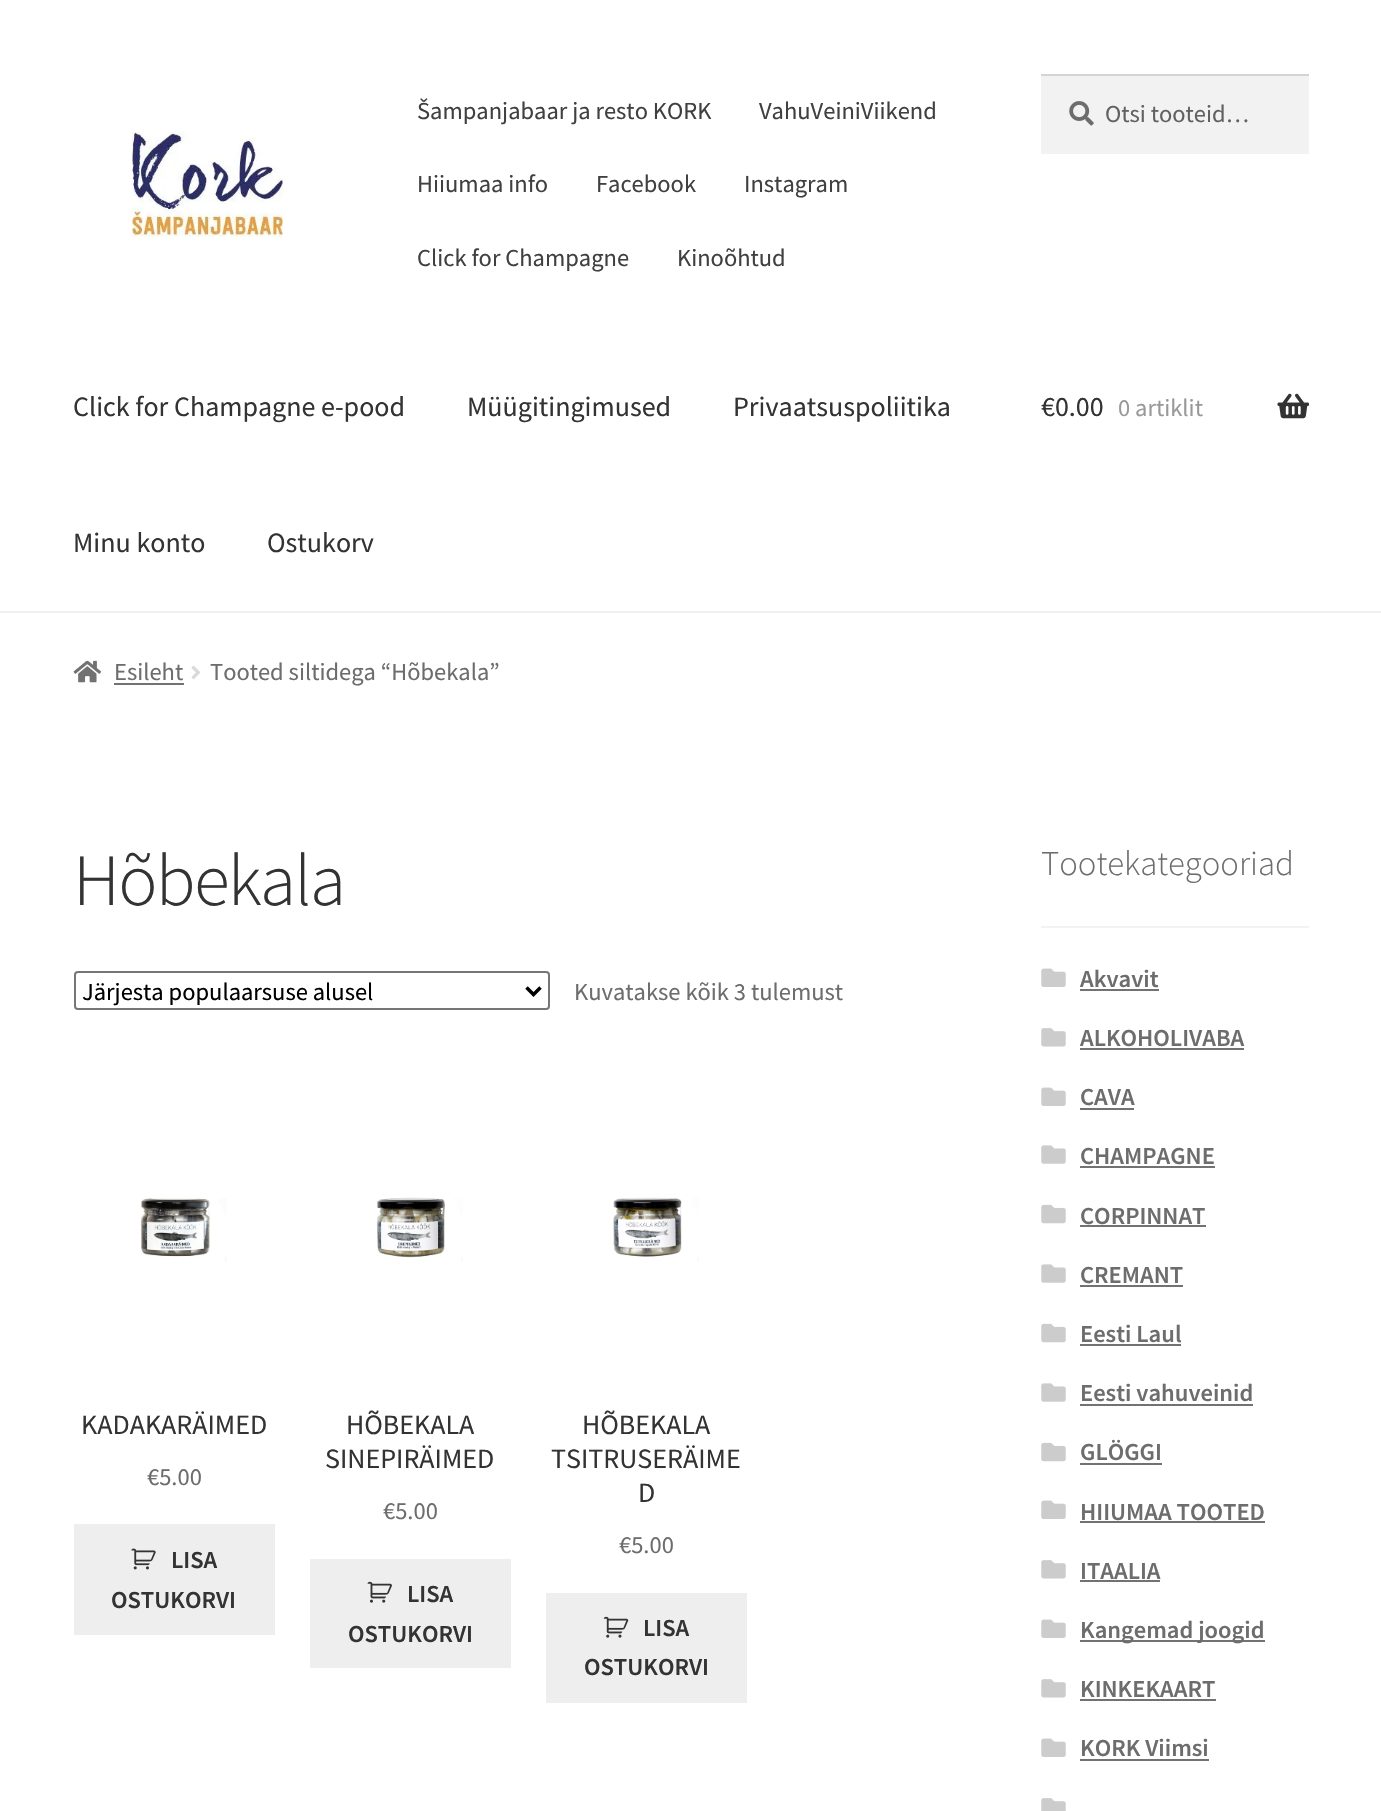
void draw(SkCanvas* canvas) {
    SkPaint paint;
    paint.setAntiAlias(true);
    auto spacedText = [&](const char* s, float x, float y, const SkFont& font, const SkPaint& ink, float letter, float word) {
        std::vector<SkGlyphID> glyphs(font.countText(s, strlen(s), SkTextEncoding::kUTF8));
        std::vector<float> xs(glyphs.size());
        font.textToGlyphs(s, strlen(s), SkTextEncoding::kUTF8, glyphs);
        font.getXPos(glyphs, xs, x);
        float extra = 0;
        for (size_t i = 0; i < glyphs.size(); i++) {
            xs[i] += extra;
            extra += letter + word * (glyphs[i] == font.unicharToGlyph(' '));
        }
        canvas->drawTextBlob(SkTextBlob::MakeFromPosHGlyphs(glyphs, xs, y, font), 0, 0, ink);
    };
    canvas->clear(0xFFFFFFFF);
    paint.setColor(0xFFF0F0F0);
    canvas->drawRect(SkRect::MakeXYWH(0, 611, 1381, 2), paint);
    SkFont font1(fontMgr->matchFamilyStyle("Source Sans Pro", SkFontStyle::Normal()), 24.5f);
    font1.setSubpixel(true);
    paint.setColor(0xFF404040);
    canvas->drawString("Šampanjabaar ja resto KORK", 417, 119, font1, paint);
    canvas->drawString("VahuVeiniViikend", 759, 119, font1, paint);
    canvas->drawString("Hiiumaa info", 417, 192, font1, paint);
    canvas->drawString("Facebook", 596, 192, font1, paint);
    canvas->drawString("Instagram", 744, 192, font1, paint);
    canvas->drawString("Click for Champagne", 417, 266, font1, paint);
    canvas->drawString("Kinoõhtud", 677, 266, font1, paint);
    paint.setColor(0xFFF2F2F2);
    canvas->drawRect(SkRect::MakeXYWH(1041, 76, 268, 78), paint);
    canvas->drawImageRect(SkImages::DeferredFromEncodedData(SkData::MakeFromFileName("img1.png")), SkRect::MakeXYWH(1069, 101, 25, 25), SkSamplingOptions());
    paint.setColor(0xFFD4D4D4);
    canvas->drawRect(SkRect::MakeXYWH(1041, 74, 268, 2), paint);
    paint.setColor(0xFF616161);
    canvas->drawString("Otsi tooteid…", 1105, 122, font1, paint);
    canvas->drawImageRect(SkImages::DeferredFromEncodedData(SkData::MakeFromFileName("img2.png")), SkRect::MakeXYWH(131, 131, 153, 106), SkSamplingOptions());
    SkFont font2(fontMgr->matchFamilyStyle("Source Sans Pro", SkFontStyle::Normal()), 28);
    font2.setSubpixel(true);
    paint.setColor(0xFF333333);
    canvas->drawString("Click for Champagne e-pood", 73, 416, font2, paint);
    canvas->drawString("Müügitingimused", 467, 416, font2, paint);
    canvas->drawString("Privaatsuspoliitika", 733, 416, font2, paint);
    canvas->drawString("Minu konto", 73, 552, font2, paint);
    canvas->drawString("Ostukorv", 267, 552, font2, paint);
    canvas->drawString("€0.00", 1041, 416, font2, paint);
    paint.setColor(0xFF999999);
    canvas->drawString("0 artiklit", 1118, 416, font1, paint);
    canvas->drawImageRect(SkImages::DeferredFromEncodedData(SkData::MakeFromFileName("img3.png")), SkRect::MakeXYWH(1277, 393, 32, 26), SkSamplingOptions());
    canvas->drawImageRect(SkImages::DeferredFromEncodedData(SkData::MakeFromFileName("img4.png")), SkRect::MakeXYWH(73, 660, 28, 23), SkSamplingOptions());
    paint.setColor(0xFF6D6D6D);
    canvas->drawString("Esileht", 114, 680, font1, paint);
    paint.setColor(0xFF727272);
    canvas->drawRect(SkRect::MakeXYWH(114, 683, 70, 2), paint);
    canvas->drawImageRect(SkImages::DeferredFromEncodedData(SkData::MakeFromFileName("img5.png")), SkRect::MakeXYWH(191, 665, 10, 15), SkSamplingOptions());
    paint.setColor(0xFF6D6D6D);
    canvas->drawString("Tooted siltidega “Hõbekala”", 210, 680, font1, paint);
    SkFont font3(fontMgr->matchFamilyStyle("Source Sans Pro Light", SkFontStyle(300, SkFontStyle::kNormal_Width, SkFontStyle::kUpright_Slant)), 73.5f);
    font3.setSubpixel(true);
    paint.setColor(0xFF333333);
    spacedText("Hõbekala", 73, 905, font3, paint, -1.75f, 0);
    paint.setStyle(SkPaint::kStroke_Style);
    paint.setStrokeWidth(2);
    paint.setColor(0xFF767676);
    canvas->drawRoundRect(SkRect::MakeXYWH(75, 972, 474, 37), 3, 3, paint);
    paint.setStrokeWidth(3.5f);
    paint.setColor(0xFF000000);
    canvas->drawPath(SkPathBuilder().moveTo(526.5f, 987.5f).lineTo(533.5f, 994.5f).lineTo(540.5f, 987.5f).detach(), paint);
    paint.setStyle(SkPaint::kFill_Style);
    canvas->drawString("Järjesta populaarsuse alusel", 82, 1000, font1, paint);
    paint.setColor(0xFF6D6D6D);
    canvas->drawString("Kuvatakse kõik 3 tulemust", 574, 1000, font1, paint);
    canvas->drawImageRect(SkImages::DeferredFromEncodedData(SkData::MakeFromFileName("img6.png")), SkRect::MakeXYWH(140, 1198, 87, 63), SkSamplingOptions());
    paint.setColor(0xFF333333);
    canvas->drawString("KADAKARÄIMED", 81, 1434, font2, paint);
    paint.setColor(0xFF6D6D6D);
    canvas->drawString("€5.00", 147, 1485, font1, paint);
    paint.setColor(0xFFEEEEEE);
    canvas->drawRect(SkRect::MakeXYWH(74, 1524, 201, 111), paint);
    canvas->drawImageRect(SkImages::DeferredFromEncodedData(SkData::MakeFromFileName("img7.png")), SkRect::MakeXYWH(131, 1548, 25, 22), SkSamplingOptions());
    SkFont font4(fontMgr->matchFamilyStyle("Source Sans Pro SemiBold", SkFontStyle(600, SkFontStyle::kNormal_Width, SkFontStyle::kUpright_Slant)), 24.5f);
    font4.setSubpixel(true);
    paint.setColor(0xFF333333);
    canvas->drawString("LISA", 171, 1568, font4, paint);
    canvas->drawString("OSTUKORVI", 111, 1608, font4, paint);
    canvas->drawImageRect(SkImages::DeferredFromEncodedData(SkData::MakeFromFileName("img8.png")), SkRect::MakeXYWH(376, 1197, 87, 64), SkSamplingOptions());
    canvas->drawString("HÕBEKALA", 346, 1434, font2, paint);
    canvas->drawString("SINEPIRÄIMED", 325, 1468, font2, paint);
    paint.setColor(0xFF6D6D6D);
    canvas->drawString("€5.00", 383, 1519, font1, paint);
    paint.setColor(0xFFEEEEEE);
    canvas->drawRect(SkRect::MakeXYWH(310, 1559, 201, 109), paint);
    canvas->drawImageRect(SkImages::DeferredFromEncodedData(SkData::MakeFromFileName("img9.png")), SkRect::MakeXYWH(367, 1581, 25, 22), SkSamplingOptions());
    paint.setColor(0xFF333333);
    canvas->drawString("LISA", 407, 1602, font4, paint);
    canvas->drawString("OSTUKORVI", 348, 1642, font4, paint);
    canvas->drawImageRect(SkImages::DeferredFromEncodedData(SkData::MakeFromFileName("img10.png")), SkRect::MakeXYWH(613, 1197, 86, 64), SkSamplingOptions());
    canvas->drawString("HÕBEKALA", 582, 1434, font2, paint);
    canvas->drawString("TSITRUSERÄIME", 551, 1468, font2, paint);
    canvas->drawString("D", 638, 1502, font2, paint);
    paint.setColor(0xFF6D6D6D);
    canvas->drawString("€5.00", 619, 1553, font1, paint);
    paint.setColor(0xFFEEEEEE);
    canvas->drawRect(SkRect::MakeXYWH(546, 1593, 201, 110), paint);
    canvas->drawImageRect(SkImages::DeferredFromEncodedData(SkData::MakeFromFileName("img11.png")), SkRect::MakeXYWH(603, 1616, 26, 22), SkSamplingOptions());
    paint.setColor(0xFF333333);
    canvas->drawString("LISA", 643, 1636, font4, paint);
    canvas->drawString("OSTUKORVI", 584, 1675, font4, paint);
    paint.setColor(0xFFF2F2F2);
    canvas->drawRect(SkRect::MakeXYWH(1041, 926, 268, 2), paint);
    SkFont font5(fontMgr->matchFamilyStyle("Source Sans Pro Light", SkFontStyle(300, SkFontStyle::kNormal_Width, SkFontStyle::kUpright_Slant)), 34.75f);
    font5.setSubpixel(true);
    paint.setColor(0xFF6D6D6D);
    canvas->drawString("Tootekategooriad", 1041, 875, font5, paint);
    canvas->drawImageRect(SkImages::DeferredFromEncodedData(SkData::MakeFromFileName("img12.png")), SkRect::MakeXYWH(1041, 968, 25, 19), SkSamplingOptions());
    canvas->drawString("Akvavit", 1080, 987, font4, paint);
    paint.setColor(0xFF727272);
    canvas->drawRect(SkRect::MakeXYWH(1080, 989, 79, 2), paint);
    canvas->drawImageRect(SkImages::DeferredFromEncodedData(SkData::MakeFromFileName("img13.png")), SkRect::MakeXYWH(1041, 1028, 25, 19), SkSamplingOptions());
    paint.setColor(0xFF6D6D6D);
    canvas->drawString("ALKOHOLIVABA", 1080, 1046, font4, paint);
    paint.setColor(0xFF727272);
    canvas->drawRect(SkRect::MakeXYWH(1080, 1048, 164, 2), paint);
    canvas->drawImageRect(SkImages::DeferredFromEncodedData(SkData::MakeFromFileName("img12.png")), SkRect::MakeXYWH(1041, 1087, 25, 19), SkSamplingOptions());
    paint.setColor(0xFF6D6D6D);
    canvas->drawString("CAVA", 1080, 1105, font4, paint);
    paint.setColor(0xFF727272);
    canvas->drawRect(SkRect::MakeXYWH(1080, 1108, 54, 2), paint);
    canvas->drawImageRect(SkImages::DeferredFromEncodedData(SkData::MakeFromFileName("img14.png")), SkRect::MakeXYWH(1041, 1145, 25, 19), SkSamplingOptions());
    paint.setColor(0xFF6D6D6D);
    canvas->drawString("CHAMPAGNE", 1080, 1164, font4, paint);
    paint.setColor(0xFF727272);
    canvas->drawRect(SkRect::MakeXYWH(1080, 1166, 135, 2), paint);
    canvas->drawImageRect(SkImages::DeferredFromEncodedData(SkData::MakeFromFileName("img15.png")), SkRect::MakeXYWH(1041, 1204, 25, 20), SkSamplingOptions());
    paint.setColor(0xFF6D6D6D);
    canvas->drawString("CORPINNAT", 1080, 1224, font4, paint);
    paint.setColor(0xFF727272);
    canvas->drawRect(SkRect::MakeXYWH(1080, 1225, 126, 2), paint);
    canvas->drawImageRect(SkImages::DeferredFromEncodedData(SkData::MakeFromFileName("img14.png")), SkRect::MakeXYWH(1041, 1264, 25, 19), SkSamplingOptions());
    paint.setColor(0xFF6D6D6D);
    canvas->drawString("CREMANT", 1080, 1283, font4, paint);
    paint.setColor(0xFF727272);
    canvas->drawRect(SkRect::MakeXYWH(1080, 1285, 103, 2), paint);
    canvas->drawImageRect(SkImages::DeferredFromEncodedData(SkData::MakeFromFileName("img15.png")), SkRect::MakeXYWH(1041, 1323, 25, 20), SkSamplingOptions());
    paint.setColor(0xFF6D6D6D);
    canvas->drawString("Eesti Laul", 1080, 1342, font4, paint);
    paint.setColor(0xFF727272);
    canvas->drawRect(SkRect::MakeXYWH(1080, 1344, 101, 2), paint);
    canvas->drawImageRect(SkImages::DeferredFromEncodedData(SkData::MakeFromFileName("img14.png")), SkRect::MakeXYWH(1041, 1383, 25, 19), SkSamplingOptions());
    paint.setColor(0xFF6D6D6D);
    canvas->drawString("Eesti vahuveinid", 1080, 1401, font4, paint);
    paint.setColor(0xFF727272);
    canvas->drawRect(SkRect::MakeXYWH(1080, 1404, 173, 2), paint);
    canvas->drawImageRect(SkImages::DeferredFromEncodedData(SkData::MakeFromFileName("img15.png")), SkRect::MakeXYWH(1041, 1442, 25, 20), SkSamplingOptions());
    paint.setColor(0xFF6D6D6D);
    canvas->drawString("GLÖGGI", 1080, 1460, font4, paint);
    paint.setColor(0xFF727272);
    canvas->drawRect(SkRect::MakeXYWH(1080, 1463, 82, 2), paint);
    canvas->drawImageRect(SkImages::DeferredFromEncodedData(SkData::MakeFromFileName("img12.png")), SkRect::MakeXYWH(1041, 1500, 25, 19), SkSamplingOptions());
    paint.setColor(0xFF6D6D6D);
    canvas->drawString("HIIUMAA TOOTED", 1080, 1520, font4, paint);
    paint.setColor(0xFF727272);
    canvas->drawRect(SkRect::MakeXYWH(1080, 1521, 185, 2), paint);
    canvas->drawImageRect(SkImages::DeferredFromEncodedData(SkData::MakeFromFileName("img13.png")), SkRect::MakeXYWH(1041, 1560, 25, 19), SkSamplingOptions());
    paint.setColor(0xFF6D6D6D);
    canvas->drawString("ITAALIA", 1080, 1579, font4, paint);
    paint.setColor(0xFF727272);
    canvas->drawRect(SkRect::MakeXYWH(1080, 1580, 80, 2), paint);
    canvas->drawImageRect(SkImages::DeferredFromEncodedData(SkData::MakeFromFileName("img12.png")), SkRect::MakeXYWH(1041, 1619, 25, 19), SkSamplingOptions());
    canvas->drawRect(SkRect::MakeXYWH(1080, 1640, 185, 2), paint);
    paint.setColor(0xFF6D6D6D);
    canvas->drawString("Kangemad joogid", 1080, 1638, font4, paint);
    canvas->drawImageRect(SkImages::DeferredFromEncodedData(SkData::MakeFromFileName("img13.png")), SkRect::MakeXYWH(1041, 1679, 25, 19), SkSamplingOptions());
    canvas->drawString("KINKEKAART", 1080, 1697, font4, paint);
    paint.setColor(0xFF727272);
    canvas->drawRect(SkRect::MakeXYWH(1080, 1699, 136, 2), paint);
    canvas->drawImageRect(SkImages::DeferredFromEncodedData(SkData::MakeFromFileName("img12.png")), SkRect::MakeXYWH(1041, 1738, 25, 19), SkSamplingOptions());
    paint.setColor(0xFF6D6D6D);
    canvas->drawString("KORK Viimsi", 1080, 1756, font4, paint);
    paint.setColor(0xFF727272);
    canvas->drawRect(SkRect::MakeXYWH(1080, 1759, 129, 2), paint);
    canvas->drawImageRect(SkImages::DeferredFromEncodedData(SkData::MakeFromFileName("img16.png")), SkRect::MakeXYWH(1041, 1798, 25, 13), SkSamplingOptions());
}
